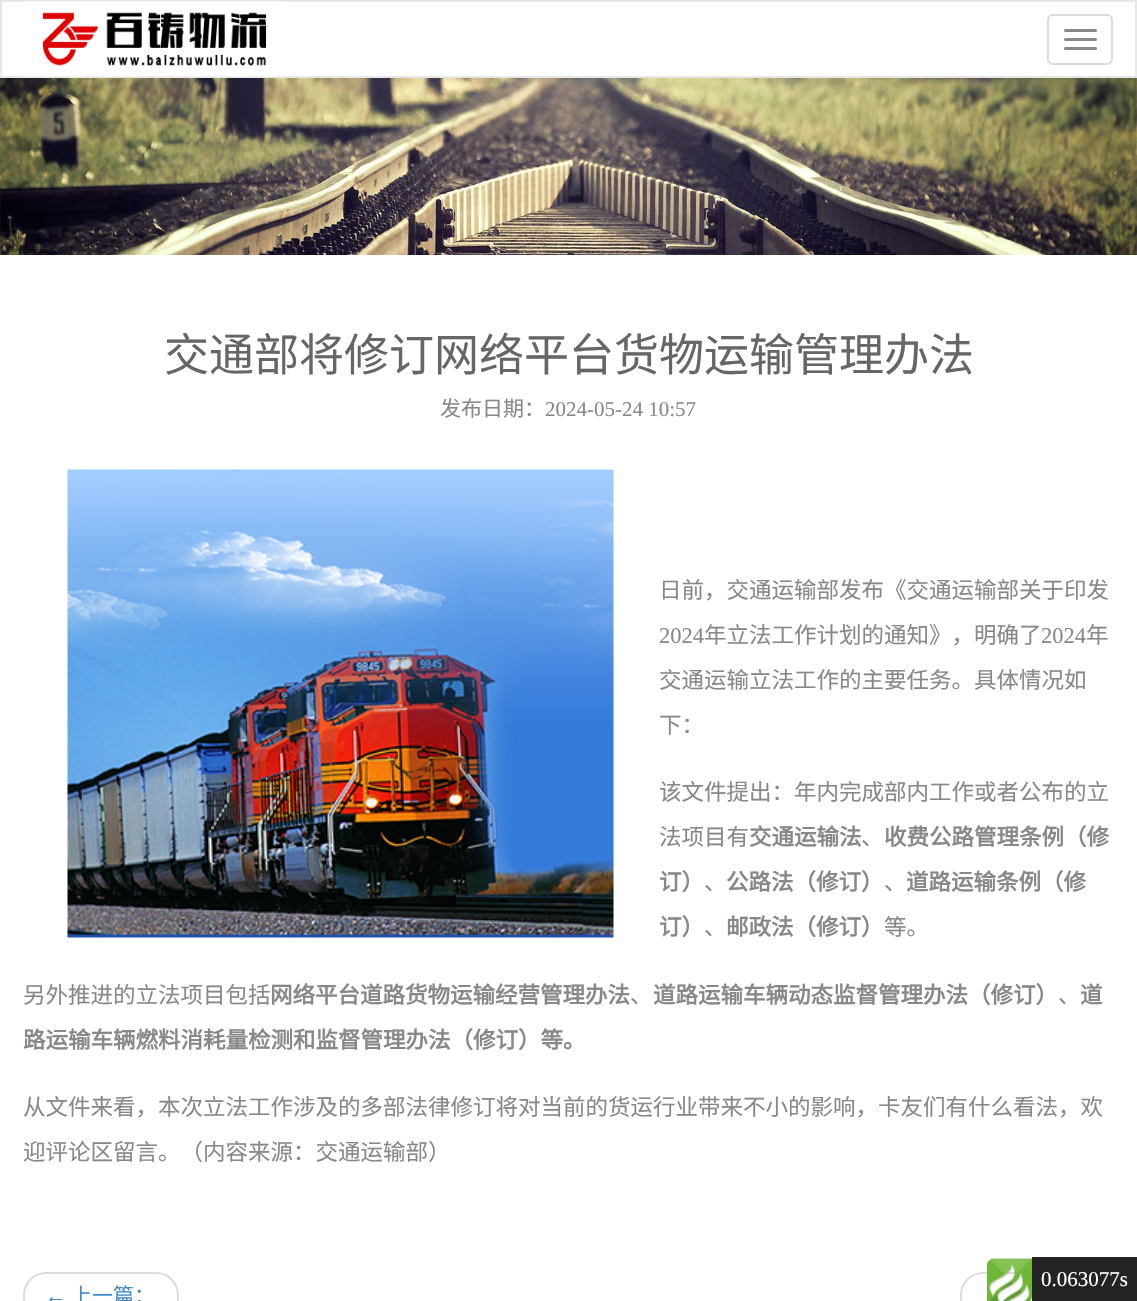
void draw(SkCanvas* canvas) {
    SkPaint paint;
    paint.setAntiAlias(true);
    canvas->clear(0xFFFFFFFF);
    paint.setStyle(SkPaint::kStroke_Style);
    paint.setStrokeWidth(2);
    paint.setColor(0xFFE7E7E7);
    canvas->drawRect(SkRect::MakeXYWH(1, 1, 1135, 76), paint);
    canvas->drawImageRect(SkImages::DeferredFromEncodedData(SkData::MakeFromFileName("img1.png")), SkRect::MakeXYWH(24, 1, 261, 76), SkSamplingOptions());
    paint.setColor(0xFFDDDDDD);
    canvas->drawRoundRect(SkRect::MakeXYWH(1048, 15, 64, 49), 5, 5, paint);
    paint.setStyle(SkPaint::kFill_Style);
    paint.setColor(0xFF888888);
    canvas->drawRoundRect(SkRect::MakeXYWH(1064, 29, 33, 3), 1.5f, 1.5f, paint);
    canvas->drawRoundRect(SkRect::MakeXYWH(1064, 38, 33, 3), 1.5f, 1.5f, paint);
    canvas->drawRoundRect(SkRect::MakeXYWH(1064, 47, 33, 3), 1.5f, 1.5f, paint);
    canvas->drawImageRect(SkImages::DeferredFromEncodedData(SkData::MakeFromFileName("img2.png")), SkRect::MakeXYWH(0, 78, 1137, 177), SkSamplingOptions());
    SkFont font1(fontMgr->matchFamilyStyle("Noto Sans CJK SC", SkFontStyle::Normal()), 45);
    font1.setSubpixel(true);
    paint.setColor(0xFF666666);
    canvas->drawString("交通部将修订网络平台货物运输管理办法", 164, 371, font1, paint);
    SkFont font2(fontMgr->matchFamilyStyle("Noto Sans CJK SC", SkFontStyle::Normal()), 21);
    font2.setSubpixel(true);
    paint.setColor(0xFF888888);
    canvas->drawString("发布日期：", 440, 416, font2, paint);
    SkFont font3(fontMgr->matchFamilyStyle("Liberation Serif", SkFontStyle::Normal()), 21);
    font3.setSubpixel(true);
    canvas->drawString("2024-05-24 10:57", 545, 416, font3, paint);
    canvas->drawImageRect(SkImages::DeferredFromEncodedData(SkData::MakeFromFileName("img3.png")), SkRect::MakeXYWH(67, 469, 547, 469), SkSamplingOptions());
    SkFont font4(fontMgr->matchFamilyStyle("Noto Sans CJK SC", SkFontStyle::Normal()), 22.5f);
    font4.setSubpixel(true);
    canvas->drawString("日前，交通运输部发布《交通运输部关于印发", 659, 598, font4, paint);
    SkFont font5(fontMgr->matchFamilyStyle("Liberation Serif", SkFontStyle::Normal()), 22.5f);
    font5.setSubpixel(true);
    canvas->drawString("2024", 659, 643, font5, paint);
    canvas->drawString("年立法工作计划的通知》，明确了", 704, 643, font4, paint);
    canvas->drawString("2024", 1041, 643, font5, paint);
    canvas->drawString("年", 1086, 643, font4, paint);
    canvas->drawString("交通运输立法工作的主要任务。具体情况如", 659, 688, font4, paint);
    canvas->drawString("下：", 659, 733, font4, paint);
    canvas->drawString("该文件提出：年内完成部内工作或者公布的立", 659, 800, font4, paint);
    canvas->drawString("法项目有", 659, 845, font4, paint);
    SkFont font6(fontMgr->matchFamilyStyle("Noto Sans CJK SC", SkFontStyle::Bold()), 22.5f);
    font6.setSubpixel(true);
    canvas->drawString("交通运输法", 749, 845, font6, paint);
    canvas->drawString("、", 861, 845, font4, paint);
    canvas->drawString("收费公路管理条例（修", 884, 845, font6, paint);
    canvas->drawString("订）", 659, 890, font6, paint);
    canvas->drawString("、", 704, 890, font4, paint);
    canvas->drawString("公路法（修订）", 726, 890, font6, paint);
    canvas->drawString("、", 884, 890, font4, paint);
    canvas->drawString("道路运输条例（修", 906, 890, font6, paint);
    canvas->drawString("订）", 659, 935, font6, paint);
    canvas->drawString("、", 704, 935, font4, paint);
    canvas->drawString("邮政法（修订）", 726, 935, font6, paint);
    canvas->drawString("等。", 884, 935, font4, paint);
    canvas->drawString("另外推进的立法项目包括", 23, 1003, font4, paint);
    canvas->drawString("网络平台道路货物运输经营管理办法", 270, 1003, font6, paint);
    canvas->drawString("、", 630, 1003, font4, paint);
    canvas->drawString("道路运输车辆动态监督管理办法（修订）", 653, 1003, font6, paint);
    canvas->drawString("、", 1058, 1003, font4, paint);
    canvas->drawString("道", 1080, 1003, font6, paint);
    canvas->drawString("路运输车辆燃料消耗量检测和监督管理办法（修订）等。", 23, 1048, font6, paint);
    canvas->drawString("从文件来看，本次立法工作涉及的多部法律修订将对当前的货运行业带来不小的影响，卡友们有什么看法，欢", 23, 1115, font4, paint);
    canvas->drawString("迎评论区留言。（内容来源：交通运输部）", 23, 1160, font4, paint);
    paint.setStyle(SkPaint::kStroke_Style);
    paint.setColor(0xFFDDDDDD);
    canvas->drawRoundRect(SkRect::MakeXYWH(24, 1273, 154, 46), 22, 22, paint);
    paint.setStyle(SkPaint::kFill_Style);
    paint.setColor(0xFF428BCA);
    canvas->drawString("←", 45, 1303, font3, paint);
    canvas->drawString("上一篇：", 71, 1303, font2, paint);
    paint.setStyle(SkPaint::kStroke_Style);
    paint.setColor(0xFFDDDDDD);
    canvas->drawRoundRect(SkRect::MakeXYWH(961, 1273, 153, 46), 22, 22, paint);
    canvas->drawImageRect(SkImages::DeferredFromEncodedData(SkData::MakeFromFileName("img4.png")), SkRect::MakeXYWH(987, 1258, 45, 43), SkSamplingOptions());
    paint.setStyle(SkPaint::kFill_Style);
    paint.setColor(0xFF232323);
    canvas->drawRect(SkRect::MakeXYWH(1032, 1257, 105, 44), paint);
    paint.setColor(0xFFFFFFFF);
    canvas->drawString("0.063077s", 1041, 1286, font3, paint);
}
